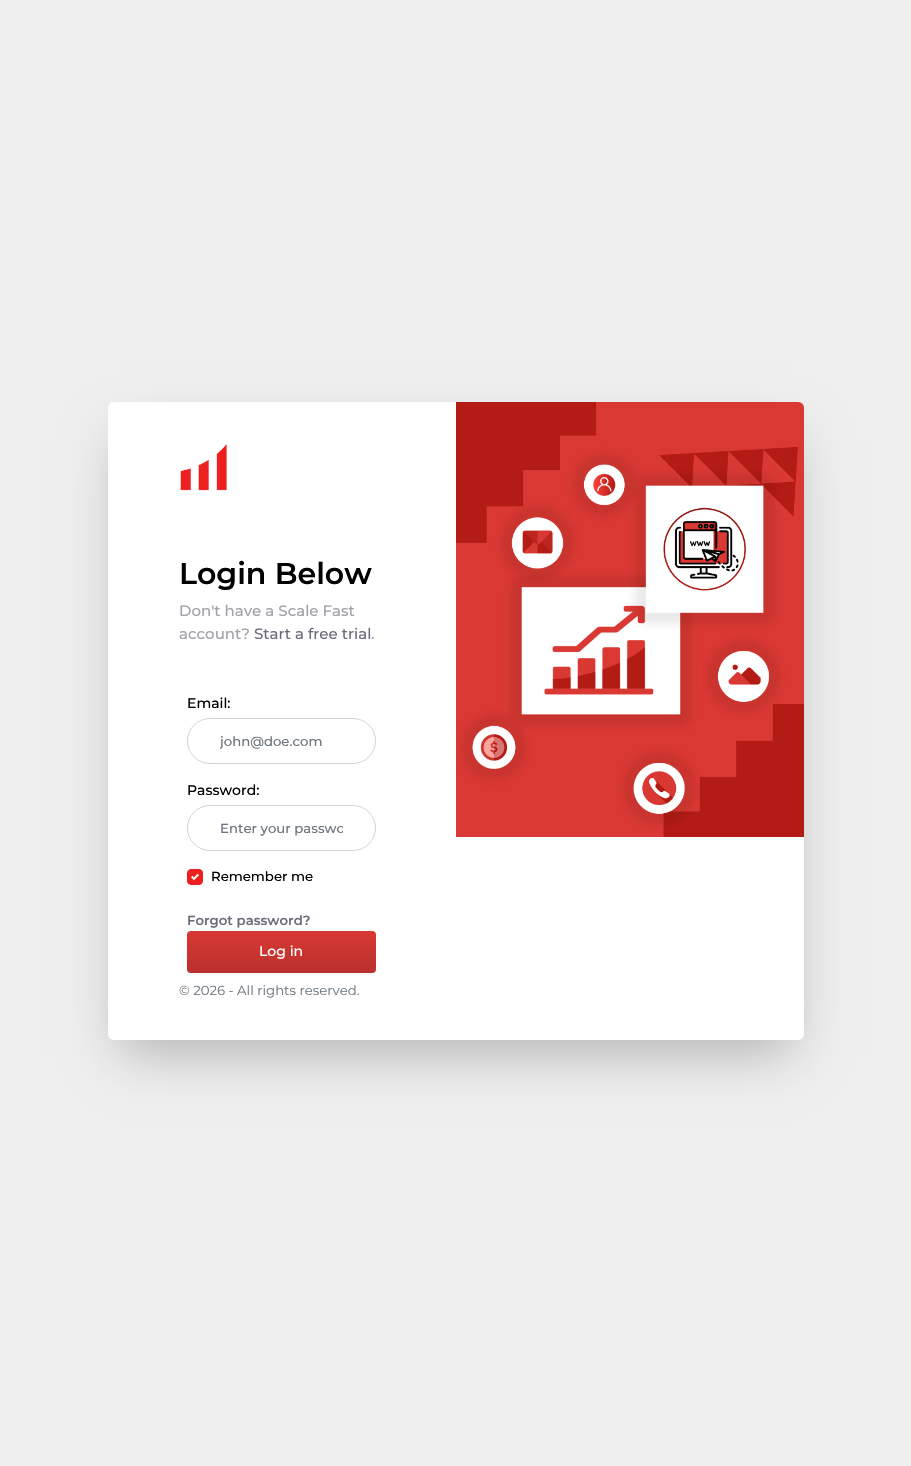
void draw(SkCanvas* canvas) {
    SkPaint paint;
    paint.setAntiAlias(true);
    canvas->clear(0xFFEFEFEF);
    paint.setColor(0x40000000);
    paint.setMaskFilter(SkMaskFilter::MakeBlur(kNormal_SkBlurStyle, 25));
    canvas->drawRect(SkRect::MakeXYWH(120, 439, 672, 614), paint);
    paint.setMaskFilter(nullptr);
    paint.setColor(0xFFFFFFFF);
    canvas->drawRoundRect(SkRect::MakeXYWH(108, 402, 696, 638), 6, 6, paint);
    canvas->drawImageRect(SkImages::DeferredFromEncodedData(SkData::MakeFromFileName("img1.png")), SkRect::MakeXYWH(180, 444, 47, 47), SkSamplingOptions());
    SkFont font1(fontMgr->matchFamilyStyle("Montserrat", SkFontStyle(600, SkFontStyle::kNormal_Width, SkFontStyle::kUpright_Slant)), 30);
    font1.setSubpixel(true);
    paint.setColor(0xFF000000);
    canvas->drawString("Login Below", 179, 584, font1, paint);
    SkFont font2(fontMgr->matchFamilyStyle("Montserrat", SkFontStyle(500, SkFontStyle::kNormal_Width, SkFontStyle::kUpright_Slant)), 15);
    font2.setSubpixel(true);
    paint.setColor(0xFFA1A1AA);
    canvas->drawString("Don't have a Scale Fast", 179, 616, font2, paint);
    canvas->drawString("account?", 179, 639, font2, paint);
    paint.setColor(0xFF6E6B7B);
    canvas->drawString("Start a free trial", 254, 639, font2, paint);
    paint.setColor(0xFFA1A1AA);
    canvas->drawString(".", 371, 639, font2, paint);
    SkFont font3(fontMgr->matchFamilyStyle("Montserrat", SkFontStyle(500, SkFontStyle::kNormal_Width, SkFontStyle::kUpright_Slant)), 14);
    font3.setSubpixel(true);
    paint.setColor(0xFF000000);
    canvas->drawString("Email:", 187, 708, font3, paint);
    paint.setStyle(SkPaint::kStroke_Style);
    paint.setStrokeWidth(1);
    paint.setColor(0xFFCED4DA);
    canvas->drawRoundRect(SkRect::MakeXYWH(187.5f, 718.5f, 188, 45), 22.5f, 22.5f, paint);
    canvas->save();
    canvas->clipRect(SkRect::MakeXYWH(220, 733, 123, 16));
    SkFont font4(fontMgr->matchFamilyStyle("Montserrat", SkFontStyle(500, SkFontStyle::kNormal_Width, SkFontStyle::kUpright_Slant)), 13.25f);
    font4.setSubpixel(true);
    paint.setStyle(SkPaint::kFill_Style);
    paint.setColor(0xFF6C757D);
    canvas->drawString("john@doe.com", 220, 746, font4, paint);
    canvas->restore();
    paint.setColor(0xFF000000);
    canvas->drawString("Password:", 187, 795, font3, paint);
    paint.setStyle(SkPaint::kStroke_Style);
    paint.setColor(0xFFCED4DA);
    canvas->drawRoundRect(SkRect::MakeXYWH(187.5f, 805.5f, 188, 45), 22.5f, 22.5f, paint);
    canvas->save();
    canvas->clipRect(SkRect::MakeXYWH(220, 820, 123, 16));
    paint.setStyle(SkPaint::kFill_Style);
    paint.setColor(0xFF6C757D);
    canvas->drawString("Enter your passwo", 220, 833, font4, paint);
    canvas->restore();
    paint.setColor(0xFFEE1F1F);
    canvas->drawRoundRect(SkRect::MakeXYWH(187.5f, 869.5f, 15, 15), 3.5f, 3.5f, paint);
    paint.setStyle(SkPaint::kStroke_Style);
    canvas->drawRoundRect(SkRect::MakeXYWH(187.5f, 869.5f, 15, 15), 3.5f, 3.5f, paint);
    paint.setStyle(SkPaint::kFill_Style);
    paint.setColor(0xFF000000);
    canvas->drawString("Remember me", 211, 881, font4, paint);
    canvas->drawImageRect(SkImages::DeferredFromEncodedData(SkData::MakeFromFileName("img2.png")), SkRect::MakeXYWH(191, 873, 8, 8), SkSamplingOptions());
    SkFont font5(fontMgr->matchFamilyStyle("Montserrat", SkFontStyle(600, SkFontStyle::kNormal_Width, SkFontStyle::kUpright_Slant)), 13.25f);
    font5.setSubpixel(true);
    paint.setColor(0xFF6E6B7B);
    canvas->drawString("Forgot password?", 187, 925, font5, paint);
    {
        const SkColor colors[] = {0xFFB8312F, 0xFFDA3832};
        const float stops[] = {0, 1};
        const SkPoint ends[] = {{282, 973}, {282, 931}};
        paint.setShader(SkGradientShader::MakeLinear(ends, colors, stops, 2, SkTileMode::kClamp));
        paint.setAlpha(255);
    }
    canvas->drawRoundRect(SkRect::MakeXYWH(187, 931, 189, 42), 4, 4, paint);
    paint.setShader(nullptr);
    paint.setColor(0xFFFFFFFF);
    canvas->drawString("Log in", 259, 956, font3, paint);
    SkFont font6(fontMgr->matchFamilyStyle("Montserrat", SkFontStyle::Normal()), 13.25f);
    font6.setSubpixel(true);
    paint.setColor(0xFF6C757D);
    canvas->drawString("© 2026 - All rights reserved.", 179, 995, font6, paint);
    canvas->drawImageRect(SkImages::DeferredFromEncodedData(SkData::MakeFromFileName("img3.png")), SkRect::MakeXYWH(456, 402, 348, 435), SkSamplingOptions());
}
